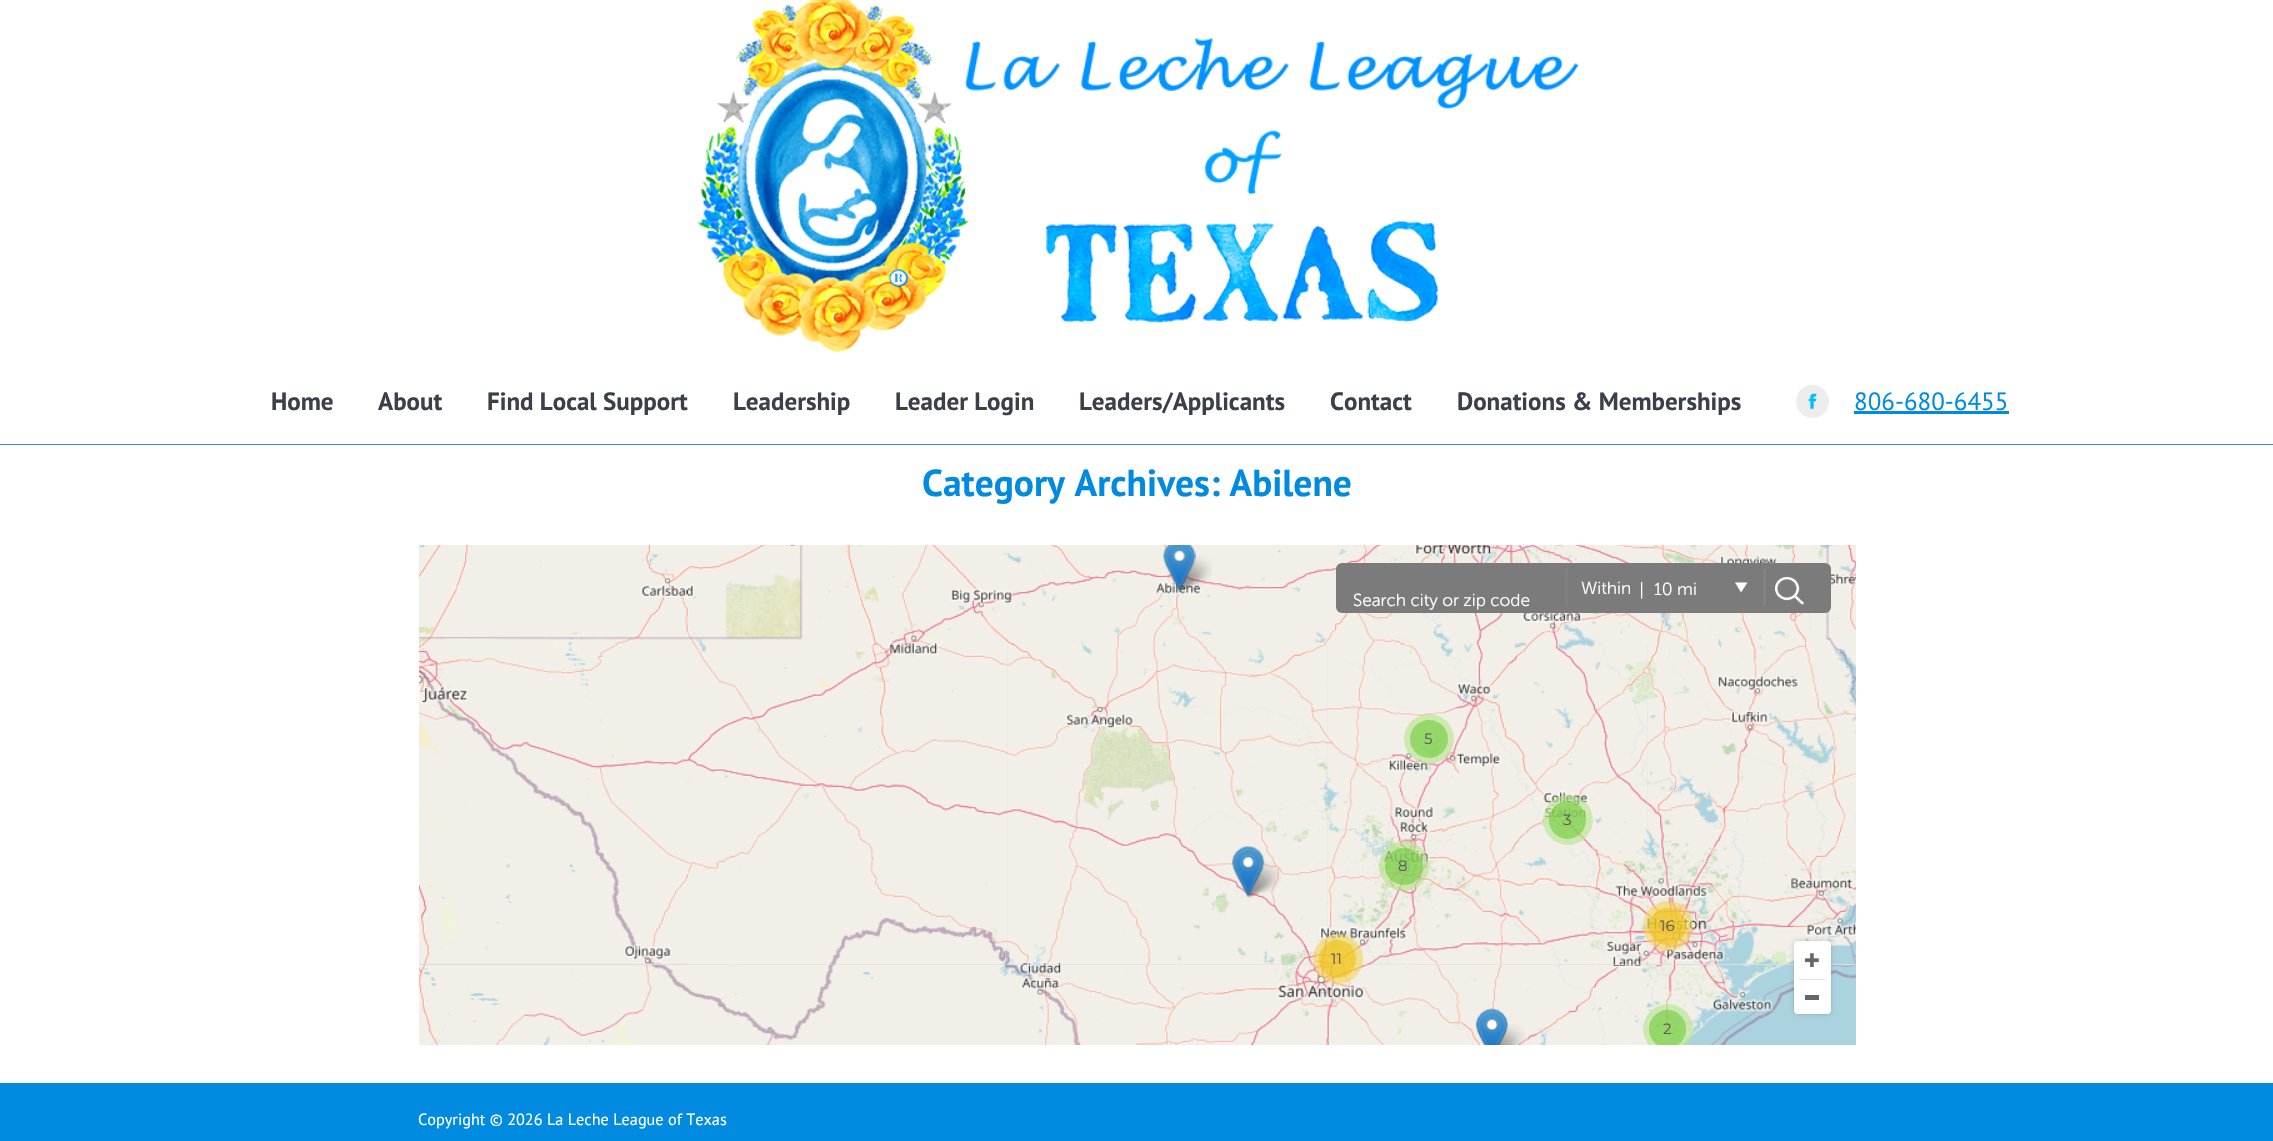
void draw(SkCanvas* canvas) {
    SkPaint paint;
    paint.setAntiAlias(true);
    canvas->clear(0xFFFFFFFF);
    paint.setColor(0xFF2596CE);
    canvas->drawRect(SkRect::MakeXYWH(0, 444, 2273, 1), paint);
    canvas->drawImageRect(SkImages::DeferredFromEncodedData(SkData::MakeFromFileName("img1.png")), SkRect::MakeXYWH(696, 0, 883, 353), SkSamplingOptions());
    SkFont font1(fontMgr->matchFamilyStyle("PT Sans", SkFontStyle::Bold()), 25);
    font1.setSubpixel(true);
    paint.setColor(0xFF3B3F4A);
    canvas->drawString("Home", 271, 410, font1, paint);
    canvas->drawString("About", 378, 410, font1, paint);
    canvas->drawString("Find Local Support", 487, 410, font1, paint);
    canvas->drawString("Leadership", 733, 410, font1, paint);
    canvas->drawString("Leader Login", 895, 410, font1, paint);
    canvas->drawString("Leaders/Applicants", 1079, 410, font1, paint);
    canvas->drawString("Contact", 1330, 410, font1, paint);
    canvas->drawString("Donations & Memberships", 1457, 410, font1, paint);
    paint.setColor(0xFFEDEDED);
    canvas->drawCircle(1812.5f, 401.5f, 16.5f, paint);
    canvas->drawImageRect(SkImages::DeferredFromEncodedData(SkData::MakeFromFileName("img2.png")), SkRect::MakeXYWH(1808, 393, 9, 16), SkSamplingOptions());
    SkFont font2(fontMgr->matchFamilyStyle("PT Sans", SkFontStyle::Normal()), 25);
    font2.setSubpixel(true);
    paint.setColor(0xFF008BE1);
    canvas->drawString("806-680-6455", 1854, 410, font2, paint);
    canvas->drawRect(SkRect::MakeXYWH(1854, 411, 155, 3), paint);
    SkFont font3(fontMgr->matchFamilyStyle("PT Sans", SkFontStyle::Bold()), 37.5f);
    font3.setSubpixel(true);
    canvas->drawString("Category Archives: Abilene", 922, 496, font3, paint);
    canvas->drawImageRect(SkImages::DeferredFromEncodedData(SkData::MakeFromFileName("img6.png")), SkRect::MakeXYWH(1008, 545, 320, 100), SkSamplingOptions());
    canvas->drawImageRect(SkImages::DeferredFromEncodedData(SkData::MakeFromFileName("img7.png")), SkRect::MakeXYWH(1327, 545, 321, 100), SkSamplingOptions());
    canvas->drawImageRect(SkImages::DeferredFromEncodedData(SkData::MakeFromFileName("img8.png")), SkRect::MakeXYWH(1647, 545, 209, 100), SkSamplingOptions());
    paint.setColor(0xFF7B7B7B);
    canvas->drawRoundRect(SkRect::MakeXYWH(1336, 563, 495, 50), 6, 6, paint);
    SkFont font4(fontMgr->matchFamilyStyle("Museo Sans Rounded", SkFontStyle(300, SkFontStyle::kNormal_Width, SkFontStyle::kUpright_Slant)), 17.5f);
    font4.setSubpixel(true);
    paint.setColor(0xFFFFFFFF);
    canvas->drawString("Within", 1581, 594, font4, paint);
    SkFont font5(fontMgr->matchFamilyStyle("Montserrat", SkFontStyle(100, SkFontStyle::kNormal_Width, SkFontStyle::kUpright_Slant)), 17.5f);
    font5.setSubpixel(true);
    canvas->drawString("|", 1639, 595, font5, paint);
    canvas->drawString("10 mi", 1654, 595, font4, paint);
    canvas->drawPath(SkPathBuilder().moveTo(1735, 582.5f).lineTo(1747.5f, 582.5f).lineTo(1741, 592.5f).close().detach(), paint);
    paint.setColor(0xFF828282);
    canvas->drawRect(SkRect::MakeXYWH(1763, 569, 3, 37), paint);
    canvas->drawImageRect(SkImages::DeferredFromEncodedData(SkData::MakeFromFileName("img3.png")), SkRect::MakeXYWH(1775, 577, 29, 28), SkSamplingOptions());
    paint.setColor(0xFFFFFFFF);
    canvas->drawString("Search city or zip code", 1353, 606, font4, paint);
    paint.setColor(0xFF808080);
    canvas->drawRect(SkRect::MakeXYWH(1565, 569, 3, 37), paint);
    paint.setColor(0xFFDDDDDD);
    canvas->drawRect(SkRect::MakeXYWH(419, 645, 1437, 320), paint);
    canvas->drawImageRect(SkImages::DeferredFromEncodedData(SkData::MakeFromFileName("img4.png")), SkRect::MakeXYWH(419, 545, 269, 100), SkSamplingOptions());
    canvas->drawImageRect(SkImages::DeferredFromEncodedData(SkData::MakeFromFileName("img5.png")), SkRect::MakeXYWH(688, 545, 320, 100), SkSamplingOptions());
    canvas->drawImageRect(SkImages::DeferredFromEncodedData(SkData::MakeFromFileName("img11.png")), SkRect::MakeXYWH(1007, 645, 321, 320), SkSamplingOptions());
    canvas->drawImageRect(SkImages::DeferredFromEncodedData(SkData::MakeFromFileName("img10.png")), SkRect::MakeXYWH(687, 645, 321, 320), SkSamplingOptions());
    canvas->drawImageRect(SkImages::DeferredFromEncodedData(SkData::MakeFromFileName("img9.png")), SkRect::MakeXYWH(419, 645, 269, 319), SkSamplingOptions());
    canvas->drawImageRect(SkImages::DeferredFromEncodedData(SkData::MakeFromFileName("img12.png")), SkRect::MakeXYWH(1327, 645, 321, 320), SkSamplingOptions());
    canvas->drawImageRect(SkImages::DeferredFromEncodedData(SkData::MakeFromFileName("img13.png")), SkRect::MakeXYWH(1647, 645, 209, 319), SkSamplingOptions());
    canvas->drawImageRect(SkImages::DeferredFromEncodedData(SkData::MakeFromFileName("img14.png")), SkRect::MakeXYWH(419, 965, 269, 80), SkSamplingOptions());
    canvas->drawImageRect(SkImages::DeferredFromEncodedData(SkData::MakeFromFileName("img15.png")), SkRect::MakeXYWH(688, 965, 320, 80), SkSamplingOptions());
    canvas->drawImageRect(SkImages::DeferredFromEncodedData(SkData::MakeFromFileName("img16.png")), SkRect::MakeXYWH(1008, 965, 320, 80), SkSamplingOptions());
    canvas->drawImageRect(SkImages::DeferredFromEncodedData(SkData::MakeFromFileName("img17.png")), SkRect::MakeXYWH(1327, 965, 321, 80), SkSamplingOptions());
    canvas->drawImageRect(SkImages::DeferredFromEncodedData(SkData::MakeFromFileName("img18.png")), SkRect::MakeXYWH(1647, 965, 209, 80), SkSamplingOptions());
    canvas->drawImageRect(SkImages::DeferredFromEncodedData(SkData::MakeFromFileName("img19.png")), SkRect::MakeXYWH(1175, 555, 37, 37), SkSamplingOptions());
    canvas->drawImageRect(SkImages::DeferredFromEncodedData(SkData::MakeFromFileName("img20.png")), SkRect::MakeXYWH(1243, 862, 38, 36), SkSamplingOptions());
    canvas->drawImageRect(SkImages::DeferredFromEncodedData(SkData::MakeFromFileName("img21.png")), SkRect::MakeXYWH(1497, 1024, 28, 21), SkSamplingOptions());
    canvas->drawImageRect(SkImages::DeferredFromEncodedData(SkData::MakeFromFileName("img22.png")), SkRect::MakeXYWH(1163, 545, 33, 47), SkSamplingOptions());
    paint.setColor(0x99B5E28C);
    canvas->drawCircle(1429, 739, 25, paint);
    paint.setColor(0x996ECC39);
    canvas->drawCircle(1429, 739, 19, paint);
    SkFont font6(fontMgr->matchFamilyStyle("Montserrat", SkFontStyle(100, SkFontStyle::kNormal_Width, SkFontStyle::kUpright_Slant)), 15);
    font6.setSubpixel(true);
    paint.setColor(0xFF5B5B5B);
    canvas->drawString("5", 1424, 744, font6, paint);
    paint.setColor(0x99B5E28C);
    canvas->drawCircle(1568, 820, 25, paint);
    paint.setColor(0x996ECC39);
    canvas->drawRoundRect(SkRect::MakeXYWH(1549, 801, 37, 38), 18.5f, 18.5f, paint);
    paint.setColor(0xFF5B5B5B);
    canvas->drawString("3", 1563, 825, font6, paint);
    canvas->drawImageRect(SkImages::DeferredFromEncodedData(SkData::MakeFromFileName("img23.png")), SkRect::MakeXYWH(1232, 845, 33, 53), SkSamplingOptions());
    paint.setColor(0x99B5E28C);
    canvas->drawCircle(1404, 866, 25, paint);
    paint.setColor(0x996ECC39);
    canvas->drawRoundRect(SkRect::MakeXYWH(1385, 848, 38, 37), 18.5f, 18.5f, paint);
    paint.setColor(0xFF5B5B5B);
    canvas->drawString("8", 1398, 871, font6, paint);
    paint.setColor(0x99F1D357);
    canvas->drawCircle(1668, 926, 25, paint);
    paint.setColor(0x99F0C20C);
    canvas->drawCircle(1667.5f, 926.5f, 18.5f, paint);
    paint.setColor(0xFF5B5B5B);
    canvas->drawString("16", 1660, 931, font6, paint);
    paint.setColor(0x99F1D357);
    canvas->drawCircle(1338, 959, 25, paint);
    paint.setColor(0x99F0C20C);
    canvas->drawRoundRect(SkRect::MakeXYWH(1319, 940, 37, 38), 18.5f, 18.5f, paint);
    paint.setColor(0xFF5B5B5B);
    canvas->drawString("11", 1331, 964, font6, paint);
    canvas->drawImageRect(SkImages::DeferredFromEncodedData(SkData::MakeFromFileName("img24.png")), SkRect::MakeXYWH(1476, 1008, 32, 37), SkSamplingOptions());
    canvas->save();
    canvas->clipRect(SkRect::MakeXYWH(419, 545, 1437, 500));
    paint.setColor(0x99B5E28C);
    canvas->drawCircle(1668, 1029, 25, paint);
    paint.setColor(0x996ECC39);
    canvas->drawRoundRect(SkRect::MakeXYWH(1649, 1010, 37, 38), 18.5f, 18.5f, paint);
    canvas->restore();
    paint.setColor(0xFF5B5B5B);
    canvas->drawString("2", 1663, 1034, font6, paint);
    paint.setColor(0x2E000000);
    paint.setMaskFilter(SkMaskFilter::MakeBlur(kNormal_SkBlurStyle, 2.5f));
    canvas->drawRoundRect(SkRect::MakeXYWH(1794, 941, 37, 73), 4, 4, paint);
    paint.setMaskFilter(nullptr);
    paint.setColor(0xFFFFFFFF);
    canvas->drawRoundRect(SkRect::MakeXYWH(1794, 941, 37, 73), 4, 4, paint);
    canvas->drawImageRect(SkImages::DeferredFromEncodedData(SkData::MakeFromFileName("img25.png")), SkRect::MakeXYWH(1805, 953, 14, 14), SkSamplingOptions());
    paint.setColor(0xFFE6E6E6);
    canvas->drawRect(SkRect::MakeXYWH(1799, 979, 27, 1), paint);
    paint.setColor(0xFF666666);
    canvas->drawRect(SkRect::MakeXYWH(1805, 995, 14, 5), paint);
    paint.setColor(0xFF008BE1);
    canvas->drawRect(SkRect::MakeXYWH(0, 1083, 2273, 58), paint);
    SkFont font7(fontMgr->matchFamilyStyle("PT Sans", SkFontStyle::Normal()), 16.25f);
    font7.setSubpixel(true);
    paint.setColor(0xFFFFFFFF);
    canvas->drawString("Copyright © 2026 La Leche League of Texas", 418, 1125, font7, paint);
}
